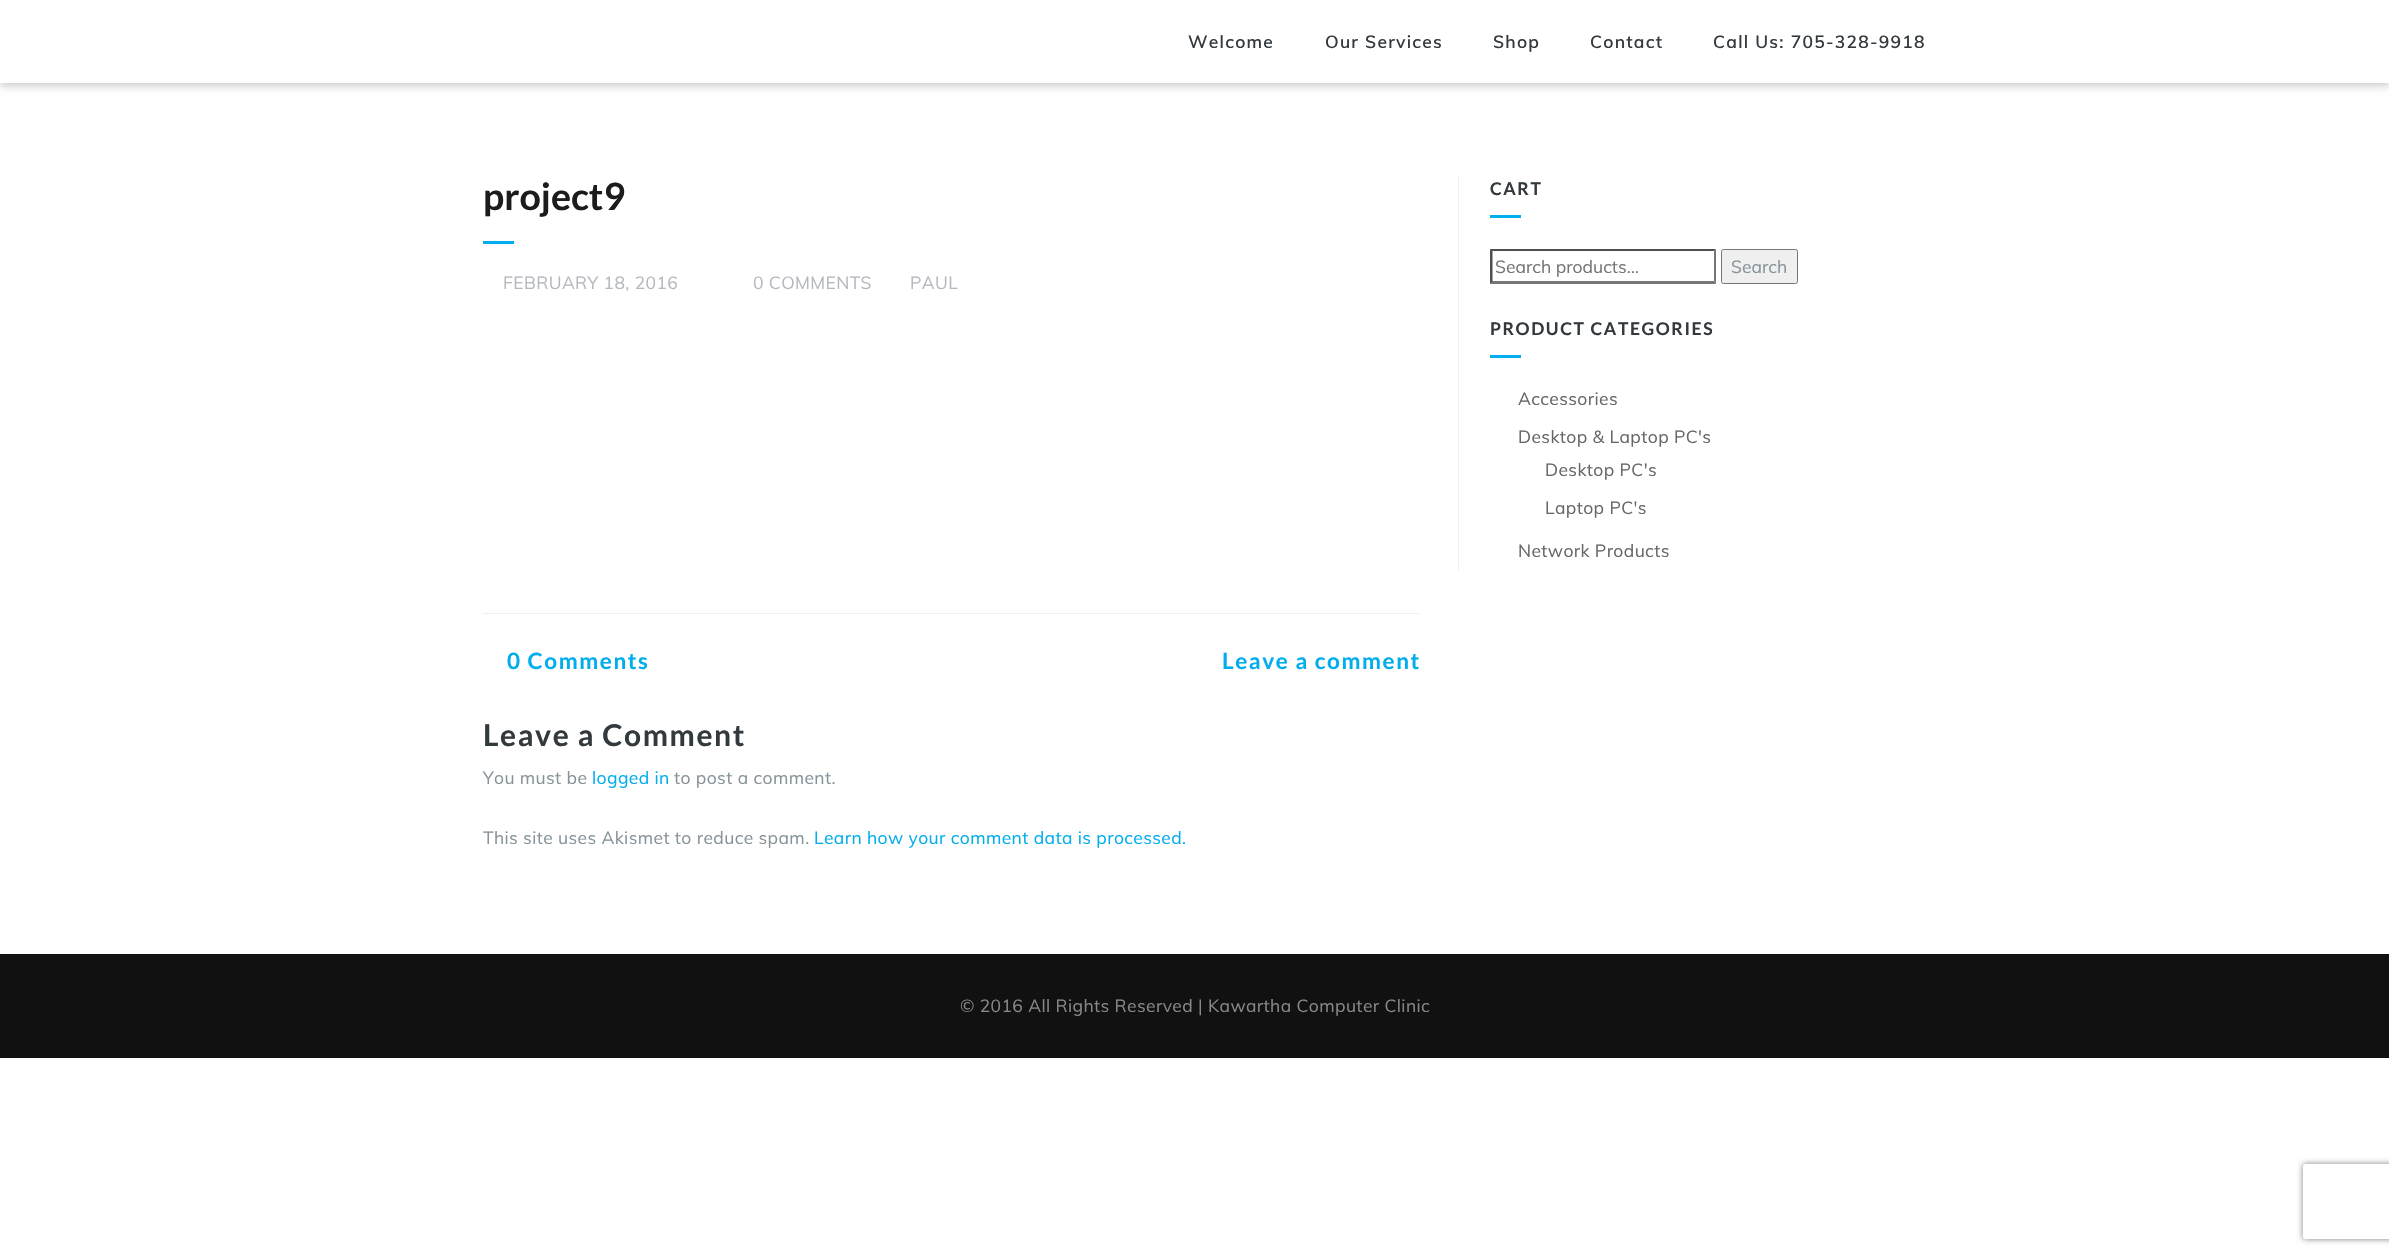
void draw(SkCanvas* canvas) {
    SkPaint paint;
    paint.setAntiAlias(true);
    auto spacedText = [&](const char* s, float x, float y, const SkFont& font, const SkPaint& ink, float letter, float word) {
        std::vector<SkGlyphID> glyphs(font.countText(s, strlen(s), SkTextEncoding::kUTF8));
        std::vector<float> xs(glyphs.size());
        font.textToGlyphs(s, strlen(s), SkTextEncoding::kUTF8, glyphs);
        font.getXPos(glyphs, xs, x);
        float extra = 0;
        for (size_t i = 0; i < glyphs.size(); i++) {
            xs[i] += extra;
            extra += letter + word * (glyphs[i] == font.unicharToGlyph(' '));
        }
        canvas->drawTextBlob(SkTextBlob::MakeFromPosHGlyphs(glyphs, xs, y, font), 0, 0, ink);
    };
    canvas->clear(0xFFFFFFFF);
    paint.setColor(0x33000000);
    paint.setMaskFilter(SkMaskFilter::MakeBlur(kNormal_SkBlurStyle, 4));
    canvas->drawRect(SkRect::MakeXYWH(0, 4, 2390, 82), paint);
    paint.setMaskFilter(nullptr);
    paint.setColor(0xFFFFFFFF);
    canvas->drawRect(SkRect::MakeXYWH(0, 0, 2389, 83), paint);
    SkFont font1(fontMgr->matchFamilyStyle("Muli", SkFontStyle(600, SkFontStyle::kNormal_Width, SkFontStyle::kUpright_Slant)), 17.5f);
    font1.setSubpixel(true);
    paint.setColor(0xFF333A3E);
    spacedText("Welcome", 1188, 48, font1, paint, 1.25f, 0);
    spacedText("Our Services", 1325, 48, font1, paint, 1.25f, 0);
    spacedText("Shop", 1493, 48, font1, paint, 1.25f, 0);
    spacedText("Contact", 1590, 48, font1, paint, 1.25f, 0);
    spacedText("Call Us: 705-328-9918", 1713, 48, font1, paint, 1.25f, 0);
    SkFont font2(fontMgr->matchFamilyStyle("Lato", SkFontStyle::Bold()), 37.5f);
    font2.setSubpixel(true);
    paint.setColor(0xFF1C1C1C);
    canvas->drawString("project9", 483, 210, font2, paint);
    paint.setColor(0xFF00ADED);
    canvas->drawRect(SkRect::MakeXYWH(483, 241, 31, 3), paint);
    SkFont font3(fontMgr->matchFamilyStyle("Muli", SkFontStyle::Normal()), 17.5f);
    font3.setSubpixel(true);
    paint.setColor(0xFFB5B8BF);
    spacedText("FEBRUARY 18, 2016", 503, 289, font3, paint, 0.38f, 0);
    spacedText("0 COMMENTS", 753, 289, font3, paint, 0.38f, 0);
    spacedText("PAUL", 910, 289, font3, paint, 0.38f, 0);
    paint.setColor(0xFFEFEFEF);
    canvas->drawRect(SkRect::MakeXYWH(483, 613, 937, 1), paint);
    SkFont font4(fontMgr->matchFamilyStyle("Lato", SkFontStyle::Bold()), 22.5f);
    font4.setSubpixel(true);
    paint.setColor(0xFF00ADED);
    spacedText("0 Comments", 507, 669, font4, paint, 1.6f, 0);
    spacedText("Leave a comment", 1222, 669, font4, paint, 1.6f, 0);
    SkFont font5(fontMgr->matchFamilyStyle("Lato", SkFontStyle::Bold()), 30);
    font5.setSubpixel(true);
    paint.setColor(0xFF333A3E);
    spacedText("Leave a Comment", 483, 746, font5, paint, 1.6f, 0);
    paint.setColor(0xFF86939A);
    spacedText("You must be", 483, 784, font3, paint, 0.38f, 0);
    paint.setColor(0xFF00ADED);
    spacedText("logged in", 592, 784, font3, paint, 0.38f, 0);
    paint.setColor(0xFF86939A);
    spacedText("to post a comment.", 674, 784, font3, paint, 0.38f, 0);
    spacedText("This site uses Akismet to reduce spam.", 483, 844, font3, paint, 0.38f, 0);
    paint.setColor(0xFF00ADED);
    spacedText("Learn how your comment data is processed.", 814, 844, font3, paint, 0.38f, 0);
    paint.setColor(0xFFEFEFEF);
    canvas->drawRect(SkRect::MakeXYWH(1458, 175, 1, 395), paint);
    SkFont font6(fontMgr->matchFamilyStyle("Lato", SkFontStyle::Bold()), 17.5f);
    font6.setSubpixel(true);
    paint.setColor(0xFF333A3E);
    spacedText("CART", 1490, 195, font6, paint, 1.6f, 0);
    paint.setColor(0xFF00ADED);
    canvas->drawRect(SkRect::MakeXYWH(1490, 215, 31, 3), paint);
    paint.setColor(0xFF4F4F4F);
    canvas->drawPath(SkPathBuilder().moveTo(1490, 249).lineTo(1716, 249).lineTo(1714, 251).lineTo(1492, 251).close().detach(), paint);
    paint.setColor(0xFF767676);
    canvas->drawPath(SkPathBuilder().moveTo(1716, 249).lineTo(1716, 284).lineTo(1714, 281).lineTo(1714, 251).close().detach(), paint);
    canvas->drawPath(SkPathBuilder().moveTo(1716, 284).lineTo(1490, 284).lineTo(1492, 281).lineTo(1714, 281).close().detach(), paint);
    paint.setColor(0xFF4F4F4F);
    canvas->drawPath(SkPathBuilder().moveTo(1490, 284).lineTo(1490, 249).lineTo(1492.5f, 251).lineTo(1492.5f, 281).close().detach(), paint);
    paint.setColor(0xFF757575);
    canvas->drawString("Search products…", 1495, 273, font3, paint);
    paint.setColor(0xFFEFEFEF);
    canvas->drawRoundRect(SkRect::MakeXYWH(1721.5f, 249.5f, 76, 34), 2, 2, paint);
    paint.setStyle(SkPaint::kStroke_Style);
    paint.setStrokeWidth(1);
    paint.setColor(0xFF767676);
    canvas->drawRoundRect(SkRect::MakeXYWH(1721.5f, 249.5f, 76, 34), 2, 2, paint);
    paint.setStyle(SkPaint::kFill_Style);
    paint.setColor(0xFF86939A);
    canvas->drawString("Search", 1731, 273, font3, paint);
    paint.setColor(0xFF333A3E);
    spacedText("PRODUCT CATEGORIES", 1490, 335, font6, paint, 1.6f, 0);
    paint.setColor(0xFF00ADED);
    canvas->drawRect(SkRect::MakeXYWH(1490, 355, 31, 3), paint);
    paint.setColor(0xFF666666);
    spacedText("Accessories", 1518, 405, font3, paint, 0.38f, 0);
    spacedText("Desktop & Laptop PC's", 1518, 443, font3, paint, 0.38f, 0);
    spacedText("Desktop PC's", 1545, 476, font3, paint, 0.38f, 0);
    spacedText("Laptop PC's", 1545, 514, font3, paint, 0.38f, 0);
    spacedText("Network Products", 1518, 557, font3, paint, 0.38f, 0);
    paint.setColor(0xFF111111);
    canvas->drawRect(SkRect::MakeXYWH(0, 954, 2389, 104), paint);
    paint.setColor(0xFF888888);
    spacedText("© 2016 All Rights Reserved | Kawartha Computer Clinic", 960, 1012, font3, paint, 0.38f, 0);
    canvas->save();
    canvas->clipPath(SkPathBuilder(SkPathFillType::kEvenOdd).moveTo(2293, 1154).lineTo(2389, 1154).lineTo(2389, 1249).lineTo(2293, 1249).close().moveTo(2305.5f, 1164).lineTo(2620.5f, 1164).cubicTo(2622, 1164, 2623, 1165, 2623, 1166.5f).lineTo(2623, 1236.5f).cubicTo(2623, 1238, 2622, 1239, 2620.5f, 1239).lineTo(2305.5f, 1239).cubicTo(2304, 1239, 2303, 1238, 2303, 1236.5f).lineTo(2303, 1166.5f).cubicTo(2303, 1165, 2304, 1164, 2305.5f, 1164).close().detach(), true);
    paint.setColor(0xFF808080);
    paint.setMaskFilter(SkMaskFilter::MakeBlur(kNormal_SkBlurStyle, 3));
    canvas->drawRoundRect(SkRect::MakeXYWH(2303, 1164, 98, 75), 2.5f, 2.5f, paint);
    paint.setMaskFilter(nullptr);
    canvas->restore();
}
